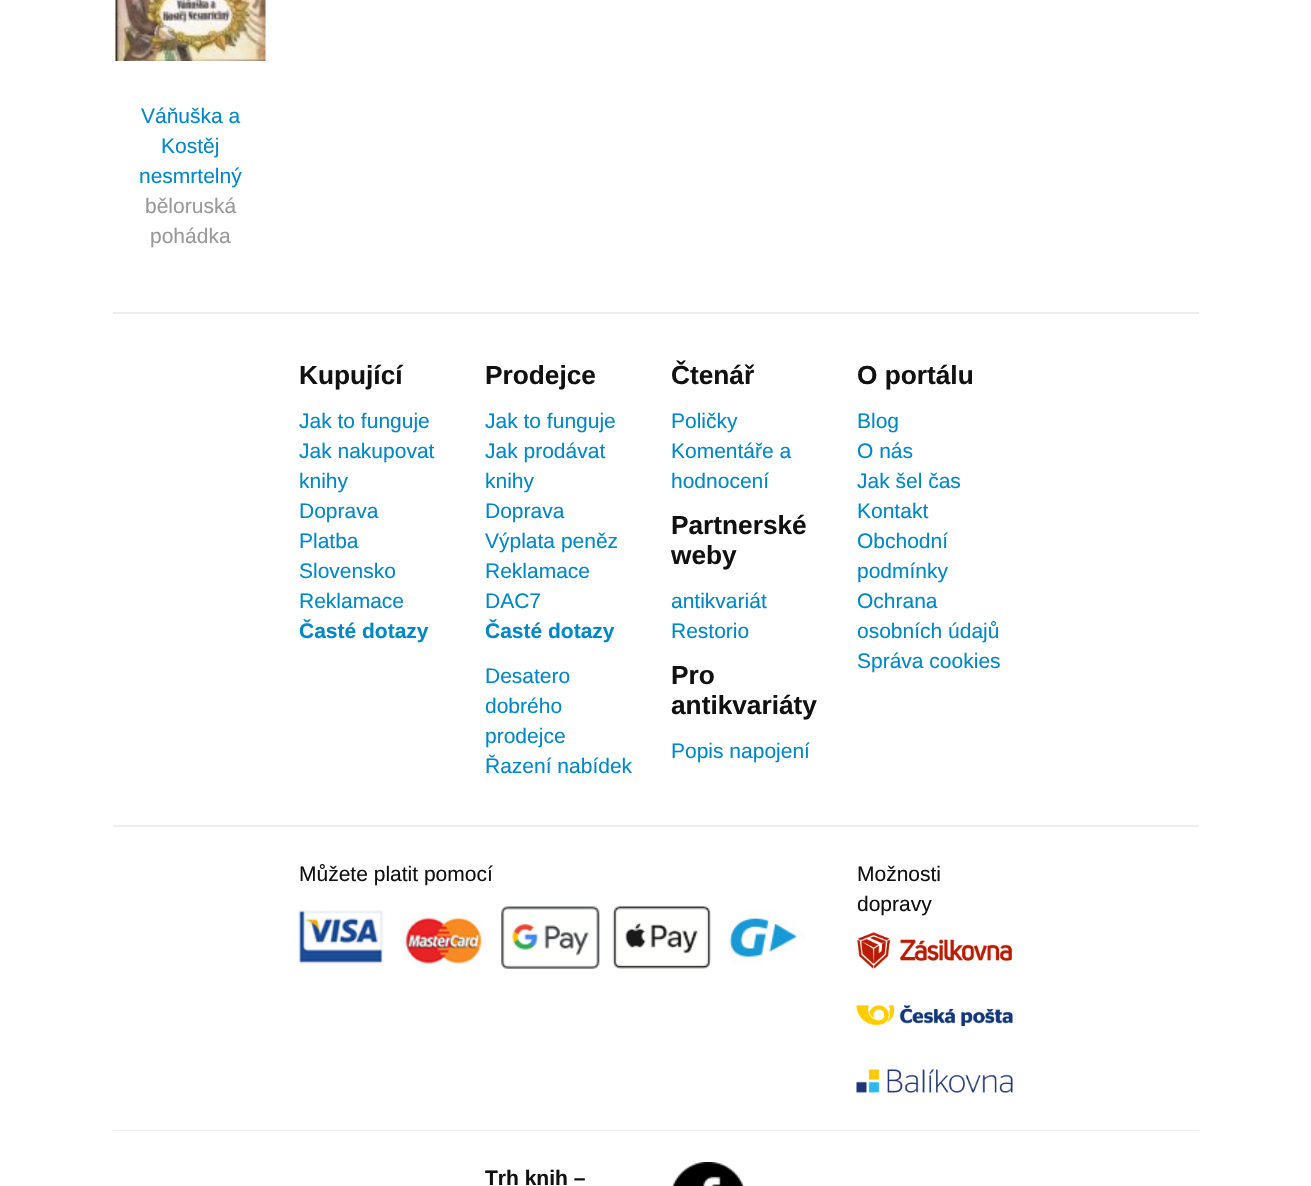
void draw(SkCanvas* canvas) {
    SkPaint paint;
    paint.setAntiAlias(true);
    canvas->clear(0xFFFFFFFF);
    canvas->drawImageRect(SkImages::DeferredFromEncodedData(SkData::MakeFromFileName("img1.png")), SkRect::MakeXYWH(115, 0, 151, 61), SkSamplingOptions());
    SkFont font1(fontMgr->matchFamilyStyle("Liberation Sans", SkFontStyle::Normal()), 21);
    font1.setSubpixel(true);
    paint.setColor(0xFF0088CC);
    canvas->drawString("Váňuška a", 141, 123, font1, paint);
    canvas->drawString("Kostěj", 161, 153, font1, paint);
    canvas->drawString("nesmrtelný", 139, 183, font1, paint);
    paint.setColor(0xFF999999);
    canvas->drawString("běloruská", 145, 213, font1, paint);
    canvas->drawString("pohádka", 150, 243, font1, paint);
    paint.setColor(0xFFEEEEEE);
    canvas->drawRect(SkRect::MakeXYWH(113, 312, 1086, 2), paint);
    SkFont font2(fontMgr->matchFamilyStyle("Liberation Sans", SkFontStyle::Bold()), 26.25f);
    font2.setSubpixel(true);
    paint.setColor(0xFF111111);
    canvas->drawString("Kupující", 299, 384, font2, paint);
    paint.setColor(0xFF0088CC);
    canvas->drawString("Jak to funguje", 299, 428, font1, paint);
    canvas->drawString("Jak nakupovat", 299, 458, font1, paint);
    canvas->drawString("knihy", 299, 488, font1, paint);
    canvas->drawString("Doprava", 299, 518, font1, paint);
    canvas->drawString("Platba", 299, 548, font1, paint);
    canvas->drawString("Slovensko", 299, 578, font1, paint);
    canvas->drawString("Reklamace", 299, 608, font1, paint);
    SkFont font3(fontMgr->matchFamilyStyle("Liberation Sans", SkFontStyle::Bold()), 21);
    font3.setSubpixel(true);
    canvas->drawString("Časté dotazy", 299, 638, font3, paint);
    paint.setColor(0xFF111111);
    canvas->drawString("Prodejce", 485, 384, font2, paint);
    paint.setColor(0xFF0088CC);
    canvas->drawString("Jak to funguje", 485, 428, font1, paint);
    canvas->drawString("Jak prodávat", 485, 458, font1, paint);
    canvas->drawString("knihy", 485, 488, font1, paint);
    canvas->drawString("Doprava", 485, 518, font1, paint);
    canvas->drawString("Výplata peněz", 485, 548, font1, paint);
    canvas->drawString("Reklamace", 485, 578, font1, paint);
    canvas->drawString("DAC7", 485, 608, font1, paint);
    canvas->drawString("Časté dotazy", 485, 638, font3, paint);
    canvas->drawString("Desatero", 485, 683, font1, paint);
    canvas->drawString("dobrého", 485, 713, font1, paint);
    canvas->drawString("prodejce", 485, 743, font1, paint);
    canvas->drawString("Řazení nabídek", 485, 773, font1, paint);
    paint.setColor(0xFF111111);
    canvas->drawString("Čtenář", 671, 384, font2, paint);
    paint.setColor(0xFF0088CC);
    canvas->drawString("Poličky", 671, 428, font1, paint);
    canvas->drawString("Komentáře a", 671, 458, font1, paint);
    canvas->drawString("hodnocení", 671, 488, font1, paint);
    paint.setColor(0xFF111111);
    canvas->drawString("Partnerské", 671, 534, font2, paint);
    canvas->drawString("weby", 671, 564, font2, paint);
    paint.setColor(0xFF0088CC);
    canvas->drawString("antikvariát", 671, 608, font1, paint);
    canvas->drawString("Restorio", 671, 638, font1, paint);
    paint.setColor(0xFF111111);
    canvas->drawString("Pro", 671, 684, font2, paint);
    canvas->drawString("antikvariáty", 671, 714, font2, paint);
    paint.setColor(0xFF0088CC);
    canvas->drawString("Popis napojení", 671, 758, font1, paint);
    paint.setColor(0xFF111111);
    canvas->drawString("O portálu", 857, 384, font2, paint);
    paint.setColor(0xFF0088CC);
    canvas->drawString("Blog", 857, 428, font1, paint);
    canvas->drawString("O nás", 857, 458, font1, paint);
    canvas->drawString("Jak šel čas", 857, 488, font1, paint);
    canvas->drawString("Kontakt", 857, 518, font1, paint);
    canvas->drawString("Obchodní", 857, 548, font1, paint);
    canvas->drawString("podmínky", 857, 578, font1, paint);
    canvas->drawString("Ochrana", 857, 608, font1, paint);
    canvas->drawString("osobních údajů", 857, 638, font1, paint);
    canvas->drawString("Správa cookies", 857, 668, font1, paint);
    paint.setColor(0xFFEEEEEE);
    canvas->drawRect(SkRect::MakeXYWH(113, 825, 1086, 2), paint);
    paint.setColor(0xFF111111);
    canvas->drawString("Můžete platit pomocí", 299, 881, font1, paint);
    canvas->drawImageRect(SkImages::DeferredFromEncodedData(SkData::MakeFromFileName("img2.png")), SkRect::MakeXYWH(298, 905, 507, 64), SkSamplingOptions());
    canvas->drawString("Možnosti", 857, 881, font1, paint);
    canvas->drawString("dopravy", 857, 911, font1, paint);
    canvas->drawImageRect(SkImages::DeferredFromEncodedData(SkData::MakeFromFileName("img3.png")), SkRect::MakeXYWH(857, 932, 155, 37), SkSamplingOptions());
    canvas->drawImageRect(SkImages::DeferredFromEncodedData(SkData::MakeFromFileName("img4.png")), SkRect::MakeXYWH(856, 1005, 157, 21), SkSamplingOptions());
    canvas->drawImageRect(SkImages::DeferredFromEncodedData(SkData::MakeFromFileName("img5.png")), SkRect::MakeXYWH(856, 1069, 157, 24), SkSamplingOptions());
    paint.setColor(0xFFEEEEEE);
    canvas->drawRect(SkRect::MakeXYWH(113, 1130, 1086, 1), paint);
    paint.setColor(0xFF111111);
    canvas->drawString("Trh knih –", 485, 1185, font3, paint);
    canvas->drawImageRect(SkImages::DeferredFromEncodedData(SkData::MakeFromFileName("img6.png")), SkRect::MakeXYWH(672, 1162, 73, 24), SkSamplingOptions());
}
